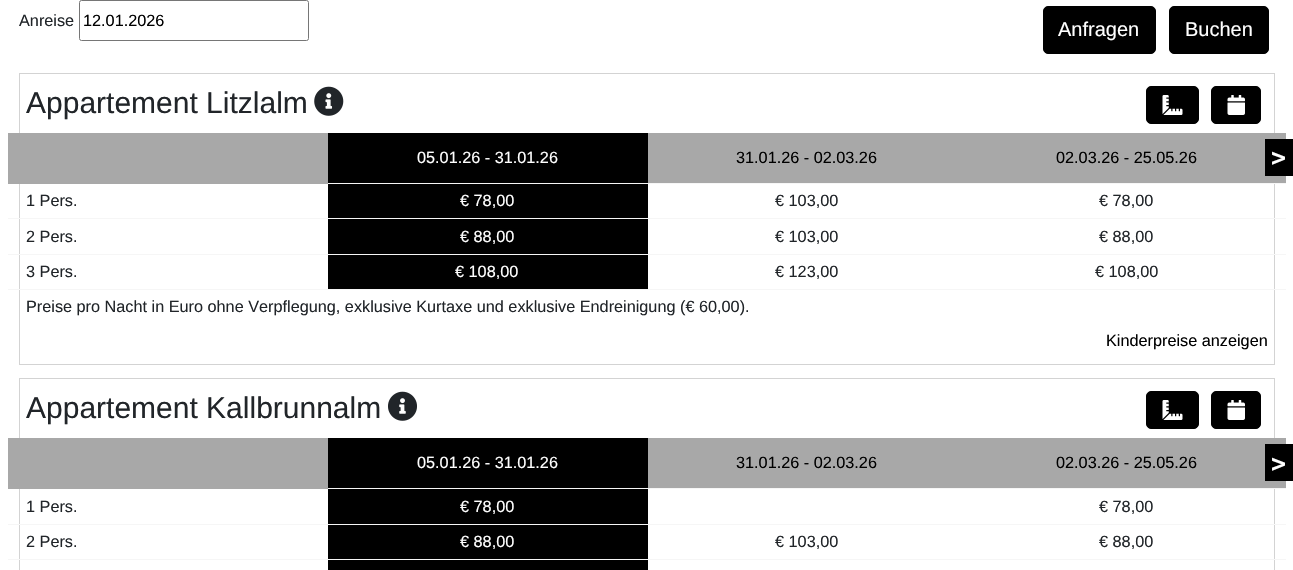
void draw(SkCanvas* canvas) {
    SkPaint paint;
    paint.setAntiAlias(true);
    canvas->clear(0xFFFFFFFF);
    SkFont font1(fontMgr->matchFamilyStyle("Liberation Sans", SkFontStyle::Normal()), 16.25f);
    font1.setSubpixel(true);
    paint.setColor(0xFF212529);
    canvas->drawString("Anreise", 19, 26, font1, paint);
    paint.setStyle(SkPaint::kStroke_Style);
    paint.setStrokeWidth(1);
    paint.setColor(0xFF767676);
    canvas->drawRoundRect(SkRect::MakeXYWH(79.5f, 0.5f, 229, 40), 2, 2, paint);
    paint.setStyle(SkPaint::kFill_Style);
    paint.setColor(0xFF000000);
    canvas->drawString("12.01.2026", 83, 26, font1, paint);
    canvas->drawRoundRect(SkRect::MakeXYWH(1043.5f, 6.5f, 112, 47), 4.5f, 4.5f, paint);
    paint.setStyle(SkPaint::kStroke_Style);
    canvas->drawRoundRect(SkRect::MakeXYWH(1043.5f, 6.5f, 112, 47), 4.5f, 4.5f, paint);
    SkFont font2(fontMgr->matchFamilyStyle("Liberation Sans", SkFontStyle::Normal()), 20);
    font2.setSubpixel(true);
    paint.setStyle(SkPaint::kFill_Style);
    paint.setColor(0xFFFFFFFF);
    canvas->drawString("Anfragen", 1058, 36, font2, paint);
    paint.setColor(0xFF000000);
    canvas->drawRoundRect(SkRect::MakeXYWH(1169.5f, 6.5f, 99, 47), 4.5f, 4.5f, paint);
    paint.setStyle(SkPaint::kStroke_Style);
    canvas->drawRoundRect(SkRect::MakeXYWH(1169.5f, 6.5f, 99, 47), 4.5f, 4.5f, paint);
    paint.setStyle(SkPaint::kFill_Style);
    paint.setColor(0xFFFFFFFF);
    canvas->drawString("Buchen", 1185, 36, font2, paint);
    paint.setStyle(SkPaint::kStroke_Style);
    paint.setColor(0xFFD3D3D3);
    canvas->drawRect(SkRect::MakeXYWH(19.5f, 73.5f, 1255, 291), paint);
    SkFont font3(fontMgr->matchFamilyStyle("Liberation Sans", SkFontStyle::Normal()), 30);
    font3.setSubpixel(true);
    paint.setStyle(SkPaint::kFill_Style);
    paint.setColor(0xFF212529);
    canvas->drawString("Appartement Litzlalm", 26, 113, font3, paint);
    canvas->drawImageRect(SkImages::DeferredFromEncodedData(SkData::MakeFromFileName("img1.png")), SkRect::MakeXYWH(314, 86, 30, 30), SkSamplingOptions());
    paint.setColor(0xFF000000);
    canvas->drawRoundRect(SkRect::MakeXYWH(1146.5f, 86.5f, 52, 37), 4.5f, 4.5f, paint);
    paint.setStyle(SkPaint::kStroke_Style);
    canvas->drawRoundRect(SkRect::MakeXYWH(1146.5f, 86.5f, 52, 37), 4.5f, 4.5f, paint);
    canvas->drawImageRect(SkImages::DeferredFromEncodedData(SkData::MakeFromFileName("img2.png")), SkRect::MakeXYWH(1162, 95, 21, 20), SkSamplingOptions());
    paint.setStyle(SkPaint::kFill_Style);
    canvas->drawRoundRect(SkRect::MakeXYWH(1211.5f, 86.5f, 49, 37), 4.5f, 4.5f, paint);
    paint.setStyle(SkPaint::kStroke_Style);
    canvas->drawRoundRect(SkRect::MakeXYWH(1211.5f, 86.5f, 49, 37), 4.5f, 4.5f, paint);
    canvas->drawImageRect(SkImages::DeferredFromEncodedData(SkData::MakeFromFileName("img3.png")), SkRect::MakeXYWH(1227, 95, 18, 20), SkSamplingOptions());
    paint.setStyle(SkPaint::kFill_Style);
    paint.setColor(0xFFA8A8A8);
    canvas->drawRect(SkRect::MakeXYWH(8, 133, 1278, 51), paint);
    paint.setColor(0xFF000000);
    canvas->drawRect(SkRect::MakeXYWH(1265, 139, 28, 37), paint);
    SkFont font4(fontMgr->matchFamilyStyle("DejaVu Sans Mono", SkFontStyle::Bold()), 25);
    font4.setSubpixel(true);
    paint.setColor(0xFFFFFFFF);
    canvas->drawString(">", 1271, 166, font4, paint);
    paint.setColor(0xFF000000);
    canvas->drawRect(SkRect::MakeXYWH(328, 133, 320, 50), paint);
    paint.setColor(0xFFF6F6F6);
    canvas->drawRect(SkRect::MakeXYWH(328, 183, 958, 1), paint);
    paint.setColor(0xFFFFFFFF);
    canvas->drawString("05.01.26 - 31.01.26", 417, 163, font1, paint);
    paint.setColor(0xFF000000);
    canvas->drawString("31.01.26 - 02.03.26", 736, 163, font1, paint);
    canvas->drawString("02.03.26 - 25.05.26", 1056, 163, font1, paint);
    paint.setColor(0xFFF6F6F6);
    canvas->drawRect(SkRect::MakeXYWH(8, 218, 1278, 1), paint);
    paint.setColor(0xFF212529);
    canvas->drawString("1 Pers.", 26, 206, font1, paint);
    paint.setColor(0xFF000000);
    canvas->drawRect(SkRect::MakeXYWH(328, 184, 320, 34), paint);
    paint.setColor(0xFFFFFFFF);
    canvas->drawString("€ 78,00", 460, 206, font1, paint);
    paint.setColor(0xFF212529);
    canvas->drawString("€ 103,00", 775, 206, font1, paint);
    canvas->drawString("€ 78,00", 1099, 206, font1, paint);
    paint.setColor(0xFFF6F6F6);
    canvas->drawRect(SkRect::MakeXYWH(8, 254, 1278, 1), paint);
    paint.setColor(0xFF212529);
    canvas->drawString("2 Pers.", 26, 242, font1, paint);
    paint.setColor(0xFF000000);
    canvas->drawRect(SkRect::MakeXYWH(328, 219, 320, 35), paint);
    paint.setColor(0xFFFFFFFF);
    canvas->drawString("€ 88,00", 460, 242, font1, paint);
    paint.setColor(0xFF212529);
    canvas->drawString("€ 103,00", 775, 242, font1, paint);
    canvas->drawString("€ 88,00", 1099, 242, font1, paint);
    paint.setColor(0xFFF6F6F6);
    canvas->drawRect(SkRect::MakeXYWH(8, 289, 1278, 1), paint);
    paint.setColor(0xFF212529);
    canvas->drawString("3 Pers.", 26, 277, font1, paint);
    paint.setColor(0xFF000000);
    canvas->drawRect(SkRect::MakeXYWH(328, 255, 320, 34), paint);
    paint.setColor(0xFFFFFFFF);
    canvas->drawString("€ 108,00", 455, 277, font1, paint);
    paint.setColor(0xFF212529);
    canvas->drawString("€ 123,00", 775, 277, font1, paint);
    canvas->drawString("€ 108,00", 1095, 277, font1, paint);
    canvas->drawString("Preise pro Nacht in Euro ohne Verpflegung, exklusive Kurtaxe und exklusive Endreinigung (€ 60,00).", 26, 312, font1, paint);
    paint.setColor(0xFF000000);
    canvas->drawString("Kinderpreise anzeigen", 1106, 346, font1, paint);
    paint.setStyle(SkPaint::kStroke_Style);
    paint.setColor(0xFFD3D3D3);
    canvas->drawRect(SkRect::MakeXYWH(19.5f, 378.5f, 1255, 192), paint);
    paint.setStyle(SkPaint::kFill_Style);
    paint.setColor(0xFF212529);
    canvas->drawString("Appartement Kallbrunnalm", 26, 418, font3, paint);
    canvas->drawImageRect(SkImages::DeferredFromEncodedData(SkData::MakeFromFileName("img4.png")), SkRect::MakeXYWH(388, 391, 29, 30), SkSamplingOptions());
    paint.setColor(0xFF000000);
    canvas->drawRoundRect(SkRect::MakeXYWH(1146.5f, 391.5f, 52, 37), 4.5f, 4.5f, paint);
    paint.setStyle(SkPaint::kStroke_Style);
    canvas->drawRoundRect(SkRect::MakeXYWH(1146.5f, 391.5f, 52, 37), 4.5f, 4.5f, paint);
    canvas->drawImageRect(SkImages::DeferredFromEncodedData(SkData::MakeFromFileName("img2.png")), SkRect::MakeXYWH(1162, 400, 21, 20), SkSamplingOptions());
    paint.setStyle(SkPaint::kFill_Style);
    canvas->drawRoundRect(SkRect::MakeXYWH(1211.5f, 391.5f, 49, 37), 4.5f, 4.5f, paint);
    paint.setStyle(SkPaint::kStroke_Style);
    canvas->drawRoundRect(SkRect::MakeXYWH(1211.5f, 391.5f, 49, 37), 4.5f, 4.5f, paint);
    canvas->drawImageRect(SkImages::DeferredFromEncodedData(SkData::MakeFromFileName("img3.png")), SkRect::MakeXYWH(1227, 400, 18, 20), SkSamplingOptions());
    paint.setStyle(SkPaint::kFill_Style);
    paint.setColor(0xFFA8A8A8);
    canvas->drawRect(SkRect::MakeXYWH(8, 438, 1278, 51), paint);
    paint.setColor(0xFF000000);
    canvas->drawRect(SkRect::MakeXYWH(1265, 444, 28, 37), paint);
    paint.setColor(0xFFFFFFFF);
    canvas->drawString(">", 1271, 472, font4, paint);
    paint.setColor(0xFF000000);
    canvas->drawRect(SkRect::MakeXYWH(328, 438, 320, 50), paint);
    paint.setColor(0xFFF6F6F6);
    canvas->drawRect(SkRect::MakeXYWH(328, 488, 958, 1), paint);
    paint.setColor(0xFFFFFFFF);
    canvas->drawString("05.01.26 - 31.01.26", 417, 468, font1, paint);
    paint.setColor(0xFF000000);
    canvas->drawString("31.01.26 - 02.03.26", 736, 468, font1, paint);
    canvas->drawString("02.03.26 - 25.05.26", 1056, 468, font1, paint);
    paint.setColor(0xFFF6F6F6);
    canvas->drawRect(SkRect::MakeXYWH(8, 524, 1278, 1), paint);
    paint.setColor(0xFF212529);
    canvas->drawString("1 Pers.", 26, 512, font1, paint);
    paint.setColor(0xFF000000);
    canvas->drawRect(SkRect::MakeXYWH(328, 489, 320, 35), paint);
    paint.setColor(0xFFFFFFFF);
    canvas->drawString("€ 78,00", 460, 512, font1, paint);
    paint.setColor(0xFF212529);
    canvas->drawString("€ 78,00", 1099, 512, font1, paint);
    paint.setColor(0xFFF6F6F6);
    canvas->drawRect(SkRect::MakeXYWH(8, 559, 1278, 1), paint);
    paint.setColor(0xFF212529);
    canvas->drawString("2 Pers.", 26, 547, font1, paint);
    paint.setColor(0xFF000000);
    canvas->drawRect(SkRect::MakeXYWH(328, 525, 320, 34), paint);
    paint.setColor(0xFFFFFFFF);
    canvas->drawString("€ 88,00", 460, 547, font1, paint);
    paint.setColor(0xFF212529);
    canvas->drawString("€ 103,00", 775, 547, font1, paint);
    canvas->drawString("€ 88,00", 1099, 547, font1, paint);
    paint.setColor(0xFF000000);
    canvas->drawRect(SkRect::MakeXYWH(328, 560, 320, 10), paint);
}
